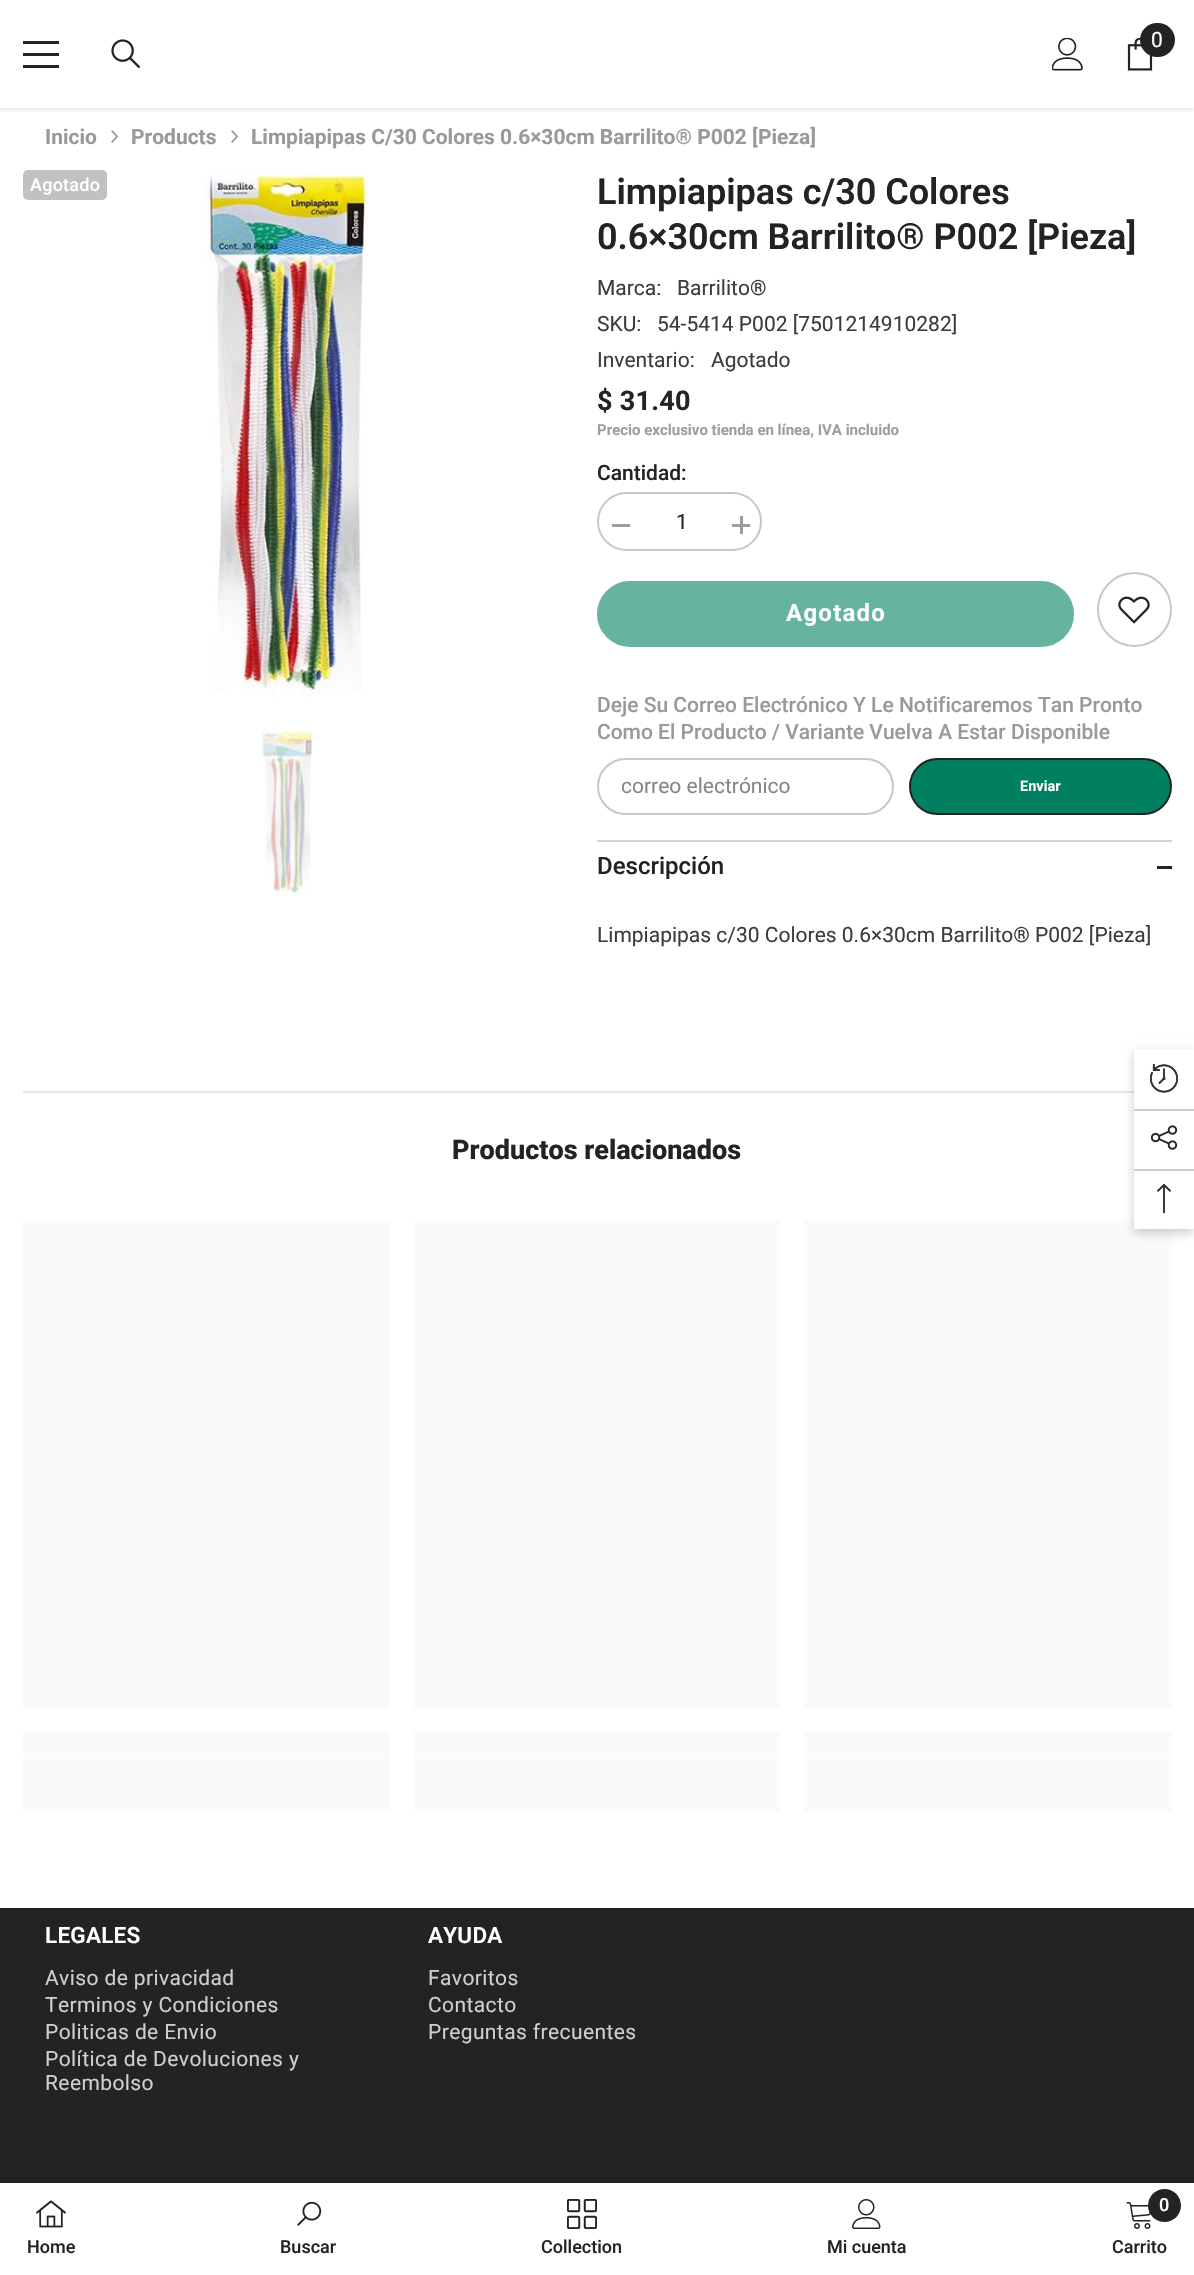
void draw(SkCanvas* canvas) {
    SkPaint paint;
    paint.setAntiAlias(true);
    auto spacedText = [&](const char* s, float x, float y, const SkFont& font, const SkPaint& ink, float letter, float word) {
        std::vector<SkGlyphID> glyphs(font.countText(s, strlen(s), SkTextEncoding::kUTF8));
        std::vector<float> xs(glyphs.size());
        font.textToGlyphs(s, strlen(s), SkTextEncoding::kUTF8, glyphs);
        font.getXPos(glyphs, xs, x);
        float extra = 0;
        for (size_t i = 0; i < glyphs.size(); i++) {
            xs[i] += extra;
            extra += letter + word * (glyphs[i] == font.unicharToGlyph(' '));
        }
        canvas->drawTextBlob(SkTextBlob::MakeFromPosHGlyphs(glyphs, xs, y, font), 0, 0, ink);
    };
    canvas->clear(0xFFFFFFFF);
    canvas->save();
    canvas->clipRect(SkRect::MakeXYWH(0, 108, 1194, 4));
    paint.setColor(0x1A000000);
    paint.setMaskFilter(SkMaskFilter::MakeBlur(kNormal_SkBlurStyle, 2));
    canvas->drawRect(SkRect::MakeXYWH(0, 2, 1194, 108), paint);
    paint.setMaskFilter(nullptr);
    canvas->restore();
    paint.setColor(0xFF232323);
    canvas->drawRect(SkRect::MakeXYWH(23, 53, 36, 3), paint);
    canvas->drawRect(SkRect::MakeXYWH(23, 41, 36, 3), paint);
    canvas->drawRect(SkRect::MakeXYWH(23, 65, 36, 3), paint);
    canvas->drawImageRect(SkImages::DeferredFromEncodedData(SkData::MakeFromFileName("img1.png")), SkRect::MakeXYWH(111, 39, 30, 30), SkSamplingOptions());
    canvas->drawImageRect(SkImages::DeferredFromEncodedData(SkData::MakeFromFileName("img2.png")), SkRect::MakeXYWH(1052, 38, 31, 33), SkSamplingOptions());
    canvas->drawImageRect(SkImages::DeferredFromEncodedData(SkData::MakeFromFileName("img3.png")), SkRect::MakeXYWH(1127, 38, 26, 33), SkSamplingOptions());
    canvas->drawRoundRect(SkRect::MakeXYWH(1140, 23, 35, 34), 17, 17, paint);
    SkFont font1(fontMgr->matchFamilyStyle("Roboto", SkFontStyle::Normal()), 21);
    font1.setSubpixel(true);
    paint.setColor(0xFFFFFFFF);
    canvas->drawString("0", 1151, 47, font1, paint);
    SkFont font2(fontMgr->matchFamilyStyle("Roboto", SkFontStyle::Bold()), 21);
    font2.setSubpixel(true);
    paint.setColor(0xFF999999);
    canvas->drawString("Inicio", 45, 144, font2, paint);
    canvas->drawImageRect(SkImages::DeferredFromEncodedData(SkData::MakeFromFileName("img4.png")), SkRect::MakeXYWH(111, 130, 7, 13), SkSamplingOptions());
    canvas->drawString("Products", 131, 144, font2, paint);
    canvas->drawImageRect(SkImages::DeferredFromEncodedData(SkData::MakeFromFileName("img4.png")), SkRect::MakeXYWH(231, 130, 7, 13), SkSamplingOptions());
    canvas->drawString("Limpiapipas C/30 Colores 0.6×30cm Barrilito® P002 [Pieza]", 251, 144, font2, paint);
    paint.setColor(0xFFC1C1C1);
    canvas->drawRoundRect(SkRect::MakeXYWH(23, 170, 84, 30), 5, 5, paint);
    SkFont font3(fontMgr->matchFamilyStyle("Roboto", SkFontStyle(500, SkFontStyle::kNormal_Width, SkFontStyle::kUpright_Slant)), 18);
    font3.setSubpixel(true);
    paint.setColor(0xFFFFFFFF);
    spacedText("Agotado", 30, 191, font3, paint, 0.25f, 0);
    canvas->drawImageRect(SkImages::DeferredFromEncodedData(SkData::MakeFromFileName("img5.png")), SkRect::MakeXYWH(206, 170, 162, 528), SkSamplingOptions());
    canvas->drawImageRect(SkImages::DeferredFromEncodedData(SkData::MakeFromFileName("img6.png")), SkRect::MakeXYWH(262, 731, 51, 163), SkSamplingOptions());
    SkFont font4(fontMgr->matchFamilyStyle("Roboto", SkFontStyle(600, SkFontStyle::kNormal_Width, SkFontStyle::kUpright_Slant)), 36);
    font4.setSubpixel(true);
    paint.setColor(0xFF232323);
    canvas->drawString("Limpiapipas c/30 Colores", 597, 204, font4, paint);
    canvas->drawString("0.6×30cm Barrilito® P002 [Pieza]", 597, 249, font4, paint);
    paint.setColor(0xFF3C3C3C);
    canvas->drawString("Marca:", 597, 295, font1, paint);
    canvas->drawString("Barrilito®", 677, 295, font1, paint);
    canvas->drawString("SKU:", 597, 331, font1, paint);
    canvas->drawString("54-5414 P002 [7501214910282]", 657, 331, font1, paint);
    canvas->drawString("Inventario:", 597, 367, font1, paint);
    canvas->drawString("Agotado", 711, 367, font1, paint);
    SkFont font5(fontMgr->matchFamilyStyle("Roboto", SkFontStyle::Bold()), 27);
    font5.setSubpixel(true);
    paint.setColor(0xFF232323);
    spacedText("$ 31.40", 597, 410, font5, paint, 0.25f, 0);
    SkFont font6(fontMgr->matchFamilyStyle("Roboto", SkFontStyle::Bold()), 15);
    font6.setSubpixel(true);
    paint.setColor(0xFF9F9D9D);
    canvas->drawString("Precio exclusivo tienda en línea, IVA incluido", 597, 435, font6, paint);
    SkFont font7(fontMgr->matchFamilyStyle("Roboto", SkFontStyle(500, SkFontStyle::kNormal_Width, SkFontStyle::kUpright_Slant)), 21);
    font7.setSubpixel(true);
    paint.setColor(0xFF232323);
    canvas->drawString("Cantidad:", 597, 480, font7, paint);
    paint.setStyle(SkPaint::kStroke_Style);
    paint.setStrokeWidth(2);
    paint.setColor(0xFFC7C7C7);
    canvas->drawRoundRect(SkRect::MakeXYWH(598, 493, 163, 57), 28.5f, 28.5f, paint);
    paint.setStyle(SkPaint::kFill_Style);
    paint.setColor(0xFF9C9C9C);
    canvas->drawRect(SkRect::MakeXYWH(612, 524, 18, 3), paint);
    paint.setColor(0xFF232323);
    canvas->drawString("1", 676, 529, font1, paint);
    paint.setColor(0xFF9C9C9C);
    canvas->drawRect(SkRect::MakeXYWH(732, 524, 18, 3), paint);
    canvas->drawRect(SkRect::MakeXYWH(740, 516, 3, 18), paint);
    paint.setColor(0xFF66B3A0);
    canvas->drawRoundRect(SkRect::MakeXYWH(598, 582, 475, 64), 32, 32, paint);
    paint.setStyle(SkPaint::kStroke_Style);
    canvas->drawRoundRect(SkRect::MakeXYWH(598, 582, 475, 64), 32, 32, paint);
    SkFont font8(fontMgr->matchFamilyStyle("Roboto", SkFontStyle::Bold()), 24);
    font8.setSubpixel(true);
    paint.setStyle(SkPaint::kFill_Style);
    paint.setColor(0xFFFFFFFF);
    spacedText("Agotado", 786, 621, font8, paint, 1.25f, 0);
    paint.setStyle(SkPaint::kStroke_Style);
    paint.setColor(0xFFC7C7C7);
    canvas->drawCircle(1134.5f, 609.5f, 36.5f, paint);
    canvas->drawImageRect(SkImages::DeferredFromEncodedData(SkData::MakeFromFileName("img7.png")), SkRect::MakeXYWH(1118, 596, 32, 28), SkSamplingOptions());
    paint.setStyle(SkPaint::kFill_Style);
    paint.setColor(0xFF999999);
    canvas->drawString("Deje Su Correo Electrónico Y Le Notificaremos Tan Pronto", 597, 712, font7, paint);
    canvas->drawString("Como El Producto / Variante Vuelva A Estar Disponible", 597, 739, font7, paint);
    paint.setStyle(SkPaint::kStroke_Style);
    paint.setColor(0xFFC7C7C7);
    canvas->drawRoundRect(SkRect::MakeXYWH(598, 759, 295, 55), 27.5f, 27.5f, paint);
    paint.setStyle(SkPaint::kFill_Style);
    paint.setColor(0xFF868686);
    canvas->drawString("correo electrónico", 621, 793, font1, paint);
    paint.setColor(0xFF008060);
    canvas->drawRoundRect(SkRect::MakeXYWH(910, 759, 261, 55), 27.5f, 27.5f, paint);
    paint.setStyle(SkPaint::kStroke_Style);
    paint.setColor(0xFF232323);
    canvas->drawRoundRect(SkRect::MakeXYWH(910, 759, 261, 55), 27.5f, 27.5f, paint);
    SkFont font9(fontMgr->matchFamilyStyle("Roboto", SkFontStyle::Bold()), 14.5f);
    font9.setSubpixel(true);
    paint.setStyle(SkPaint::kFill_Style);
    paint.setColor(0xFFFFFFFF);
    canvas->drawString("Enviar", 1020, 791, font9, paint);
    paint.setColor(0xFFD3D3D3);
    canvas->drawRect(SkRect::MakeXYWH(597, 840, 575, 2), paint);
    SkFont font10(fontMgr->matchFamilyStyle("Roboto", SkFontStyle(500, SkFontStyle::kNormal_Width, SkFontStyle::kUpright_Slant)), 24);
    font10.setSubpixel(true);
    paint.setColor(0xFF232323);
    canvas->drawString("Descripción", 597, 874, font10, paint);
    canvas->drawRect(SkRect::MakeXYWH(1157, 866, 15, 3), paint);
    paint.setColor(0xFF3C3C3C);
    canvas->drawString("Limpiapipas c/30 Colores 0.6×30cm Barrilito® P002 [Pieza]", 597, 942, font1, paint);
    paint.setColor(0xFFE8E8E8);
    canvas->drawRect(SkRect::MakeXYWH(23, 1091, 1111, 2), paint);
    SkFont font11(fontMgr->matchFamilyStyle("Roboto", SkFontStyle(800, SkFontStyle::kNormal_Width, SkFontStyle::kUpright_Slant)), 27);
    font11.setSubpixel(true);
    paint.setColor(0xFF232323);
    canvas->drawString("Productos relacionados", 452, 1159, font11, paint);
    paint.setColor(0xFFFAFAFA);
    canvas->drawRect(SkRect::MakeXYWH(23, 1221, 367, 488), paint);
    {
        const SkColor colors[] = {0xFFFAFAFA, 0xFFF1F2F3, 0xFFFAFAFA};
        const float stops[] = {0.04f, 0.25f, 0.36f};
        const SkPoint ends[] = {{-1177, 1742}, {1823, 1742}};
        paint.setShader(SkGradientShader::MakeLinear(ends, colors, stops, 3, SkTileMode::kClamp));
        paint.setAlpha(255);
    }
    canvas->drawRect(SkRect::MakeXYWH(23, 1731, 367, 23), paint);
    {
        const SkColor colors[] = {0xFFFAFAFA, 0xFFF1F2F3, 0xFFFAFAFA};
        const float stops[] = {0.04f, 0.25f, 0.36f};
        const SkPoint ends[] = {{-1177, 1768}, {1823, 1768}};
        paint.setShader(SkGradientShader::MakeLinear(ends, colors, stops, 3, SkTileMode::kClamp));
        paint.setAlpha(255);
    }
    canvas->drawRect(SkRect::MakeXYWH(23, 1755, 367, 26), paint);
    {
        const SkColor colors[] = {0xFFFAFAFA, 0xFFF1F2F3, 0xFFFAFAFA};
        const float stops[] = {0.04f, 0.25f, 0.36f};
        const SkPoint ends[] = {{-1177, 1796}, {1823, 1796}};
        paint.setShader(SkGradientShader::MakeLinear(ends, colors, stops, 3, SkTileMode::kClamp));
        paint.setAlpha(255);
    }
    canvas->drawRect(SkRect::MakeXYWH(23, 1781, 367, 30), paint);
    paint.setShader(nullptr);
    paint.setColor(0xFFFAFAFA);
    canvas->drawRect(SkRect::MakeXYWH(414, 1221, 366, 488), paint);
    {
        const SkColor colors[] = {0xFFFAFAFA, 0xFFF1F2F3, 0xFFFAFAFA};
        const float stops[] = {0.04f, 0.25f, 0.36f};
        const SkPoint ends[] = {{-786, 1742}, {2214, 1742}};
        paint.setShader(SkGradientShader::MakeLinear(ends, colors, stops, 3, SkTileMode::kClamp));
        paint.setAlpha(255);
    }
    canvas->drawRect(SkRect::MakeXYWH(414, 1731, 366, 23), paint);
    {
        const SkColor colors[] = {0xFFFAFAFA, 0xFFF1F2F3, 0xFFFAFAFA};
        const float stops[] = {0.04f, 0.25f, 0.36f};
        const SkPoint ends[] = {{-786, 1768}, {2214, 1768}};
        paint.setShader(SkGradientShader::MakeLinear(ends, colors, stops, 3, SkTileMode::kClamp));
        paint.setAlpha(255);
    }
    canvas->drawRect(SkRect::MakeXYWH(414, 1755, 366, 26), paint);
    {
        const SkColor colors[] = {0xFFFAFAFA, 0xFFF1F2F3, 0xFFFAFAFA};
        const float stops[] = {0.04f, 0.25f, 0.36f};
        const SkPoint ends[] = {{-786, 1796}, {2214, 1796}};
        paint.setShader(SkGradientShader::MakeLinear(ends, colors, stops, 3, SkTileMode::kClamp));
        paint.setAlpha(255);
    }
    canvas->drawRect(SkRect::MakeXYWH(414, 1781, 366, 30), paint);
    paint.setShader(nullptr);
    paint.setColor(0xFFFAFAFA);
    canvas->drawRect(SkRect::MakeXYWH(804, 1221, 368, 488), paint);
    {
        const SkColor colors[] = {0xFFFAFAFA, 0xFFF1F2F3, 0xFFFAFAFA};
        const float stops[] = {0.04f, 0.25f, 0.36f};
        const SkPoint ends[] = {{-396, 1742}, {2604, 1742}};
        paint.setShader(SkGradientShader::MakeLinear(ends, colors, stops, 3, SkTileMode::kClamp));
        paint.setAlpha(255);
    }
    canvas->drawRect(SkRect::MakeXYWH(804, 1731, 368, 23), paint);
    {
        const SkColor colors[] = {0xFFFAFAFA, 0xFFF1F2F3, 0xFFFAFAFA};
        const float stops[] = {0.04f, 0.25f, 0.36f};
        const SkPoint ends[] = {{-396, 1768}, {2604, 1768}};
        paint.setShader(SkGradientShader::MakeLinear(ends, colors, stops, 3, SkTileMode::kClamp));
        paint.setAlpha(255);
    }
    canvas->drawRect(SkRect::MakeXYWH(804, 1755, 368, 26), paint);
    {
        const SkColor colors[] = {0xFFFAFAFA, 0xFFF1F2F3, 0xFFFAFAFA};
        const float stops[] = {0.04f, 0.25f, 0.36f};
        const SkPoint ends[] = {{-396, 1796}, {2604, 1796}};
        paint.setShader(SkGradientShader::MakeLinear(ends, colors, stops, 3, SkTileMode::kClamp));
        paint.setAlpha(255);
    }
    canvas->drawRect(SkRect::MakeXYWH(804, 1781, 368, 30), paint);
    paint.setShader(nullptr);
    paint.setColor(0xFF232323);
    canvas->drawRect(SkRect::MakeXYWH(0, 1908, 1194, 275), paint);
    SkFont font12(fontMgr->matchFamilyStyle("Roboto", SkFontStyle(600, SkFontStyle::kNormal_Width, SkFontStyle::kUpright_Slant)), 22.5f);
    font12.setSubpixel(true);
    paint.setColor(0xFFFFFFFF);
    spacedText("LEGALES", 45, 1943, font12, paint, 0.25f, 0);
    paint.setColor(0xFFCFCFCF);
    spacedText("Aviso de privacidad", 45, 1985, font1, paint, 0.4f, 0);
    spacedText("Terminos y Condiciones", 45, 2012, font1, paint, 0.4f, 0);
    spacedText("Politicas de Envio", 45, 2039, font1, paint, 0.4f, 0);
    spacedText("Política de Devoluciones y", 45, 2066, font1, paint, 0.4f, 0);
    spacedText("Reembolso", 45, 2090, font1, paint, 0.4f, 0);
    paint.setColor(0xFFFFFFFF);
    spacedText("AYUDA", 428, 1943, font12, paint, 0.25f, 0);
    paint.setColor(0xFFCFCFCF);
    spacedText("Favoritos", 428, 1985, font1, paint, 0.4f, 0);
    spacedText("Contacto", 428, 2012, font1, paint, 0.4f, 0);
    spacedText("Preguntas frecuentes", 428, 2039, font1, paint, 0.4f, 0);
    paint.setColor(0x1F000000);
    paint.setMaskFilter(SkMaskFilter::MakeBlur(kNormal_SkBlurStyle, 7));
    canvas->drawRect(SkRect::MakeXYWH(0, 2183, 1194, 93), paint);
    paint.setMaskFilter(nullptr);
    paint.setColor(0xFFFFFFFF);
    canvas->drawRect(SkRect::MakeXYWH(0, 2183, 1194, 92), paint);
    canvas->drawImageRect(SkImages::DeferredFromEncodedData(SkData::MakeFromFileName("img8.png")), SkRect::MakeXYWH(36, 2200, 30, 28), SkSamplingOptions());
    paint.setColor(0xFF232323);
    canvas->drawString("Home", 27, 2253, font3, paint);
    canvas->drawImageRect(SkImages::DeferredFromEncodedData(SkData::MakeFromFileName("img9.png")), SkRect::MakeXYWH(297, 2201, 25, 25), SkSamplingOptions());
    canvas->drawString("Buscar", 280, 2253, font3, paint);
    canvas->drawImageRect(SkImages::DeferredFromEncodedData(SkData::MakeFromFileName("img10.png")), SkRect::MakeXYWH(567, 2199, 30, 30), SkSamplingOptions());
    canvas->drawString("Collection", 541, 2253, font3, paint);
    canvas->drawImageRect(SkImages::DeferredFromEncodedData(SkData::MakeFromFileName("img11.png")), SkRect::MakeXYWH(852, 2199, 29, 30), SkSamplingOptions());
    canvas->drawString("Mi cuenta", 827, 2253, font3, paint);
    canvas->drawImageRect(SkImages::DeferredFromEncodedData(SkData::MakeFromFileName("img12.png")), SkRect::MakeXYWH(1126, 2202, 25, 27), SkSamplingOptions());
    canvas->drawCircle(1164.5f, 2205.5f, 16.5f, paint);
    paint.setColor(0xFFFFFFFF);
    canvas->drawString("0", 1159, 2211, font3, paint);
    paint.setColor(0xFF232323);
    canvas->drawString("Carrito", 1112, 2253, font3, paint);
    paint.setColor(0x33000000);
    paint.setMaskFilter(SkMaskFilter::MakeBlur(kNormal_SkBlurStyle, 5));
    canvas->drawRect(SkRect::MakeXYWH(1134, 1053, 60, 180), paint);
    paint.setMaskFilter(nullptr);
    paint.setColor(0xFFFFFFFF);
    canvas->drawRect(SkRect::MakeXYWH(1134, 1049, 60, 180), paint);
    canvas->drawImageRect(SkImages::DeferredFromEncodedData(SkData::MakeFromFileName("img13.png")), SkRect::MakeXYWH(1149, 1064, 30, 29), SkSamplingOptions());
    paint.setColor(0xFFCCCCCC);
    canvas->drawRect(SkRect::MakeXYWH(1134, 1109, 60, 2), paint);
    canvas->drawImageRect(SkImages::DeferredFromEncodedData(SkData::MakeFromFileName("img14.png")), SkRect::MakeXYWH(1150, 1125, 28, 25), SkSamplingOptions());
    canvas->drawRect(SkRect::MakeXYWH(1134, 1169, 60, 2), paint);
    canvas->drawImageRect(SkImages::DeferredFromEncodedData(SkData::MakeFromFileName("img15.png")), SkRect::MakeXYWH(1157, 1184, 14, 30), SkSamplingOptions());
}
